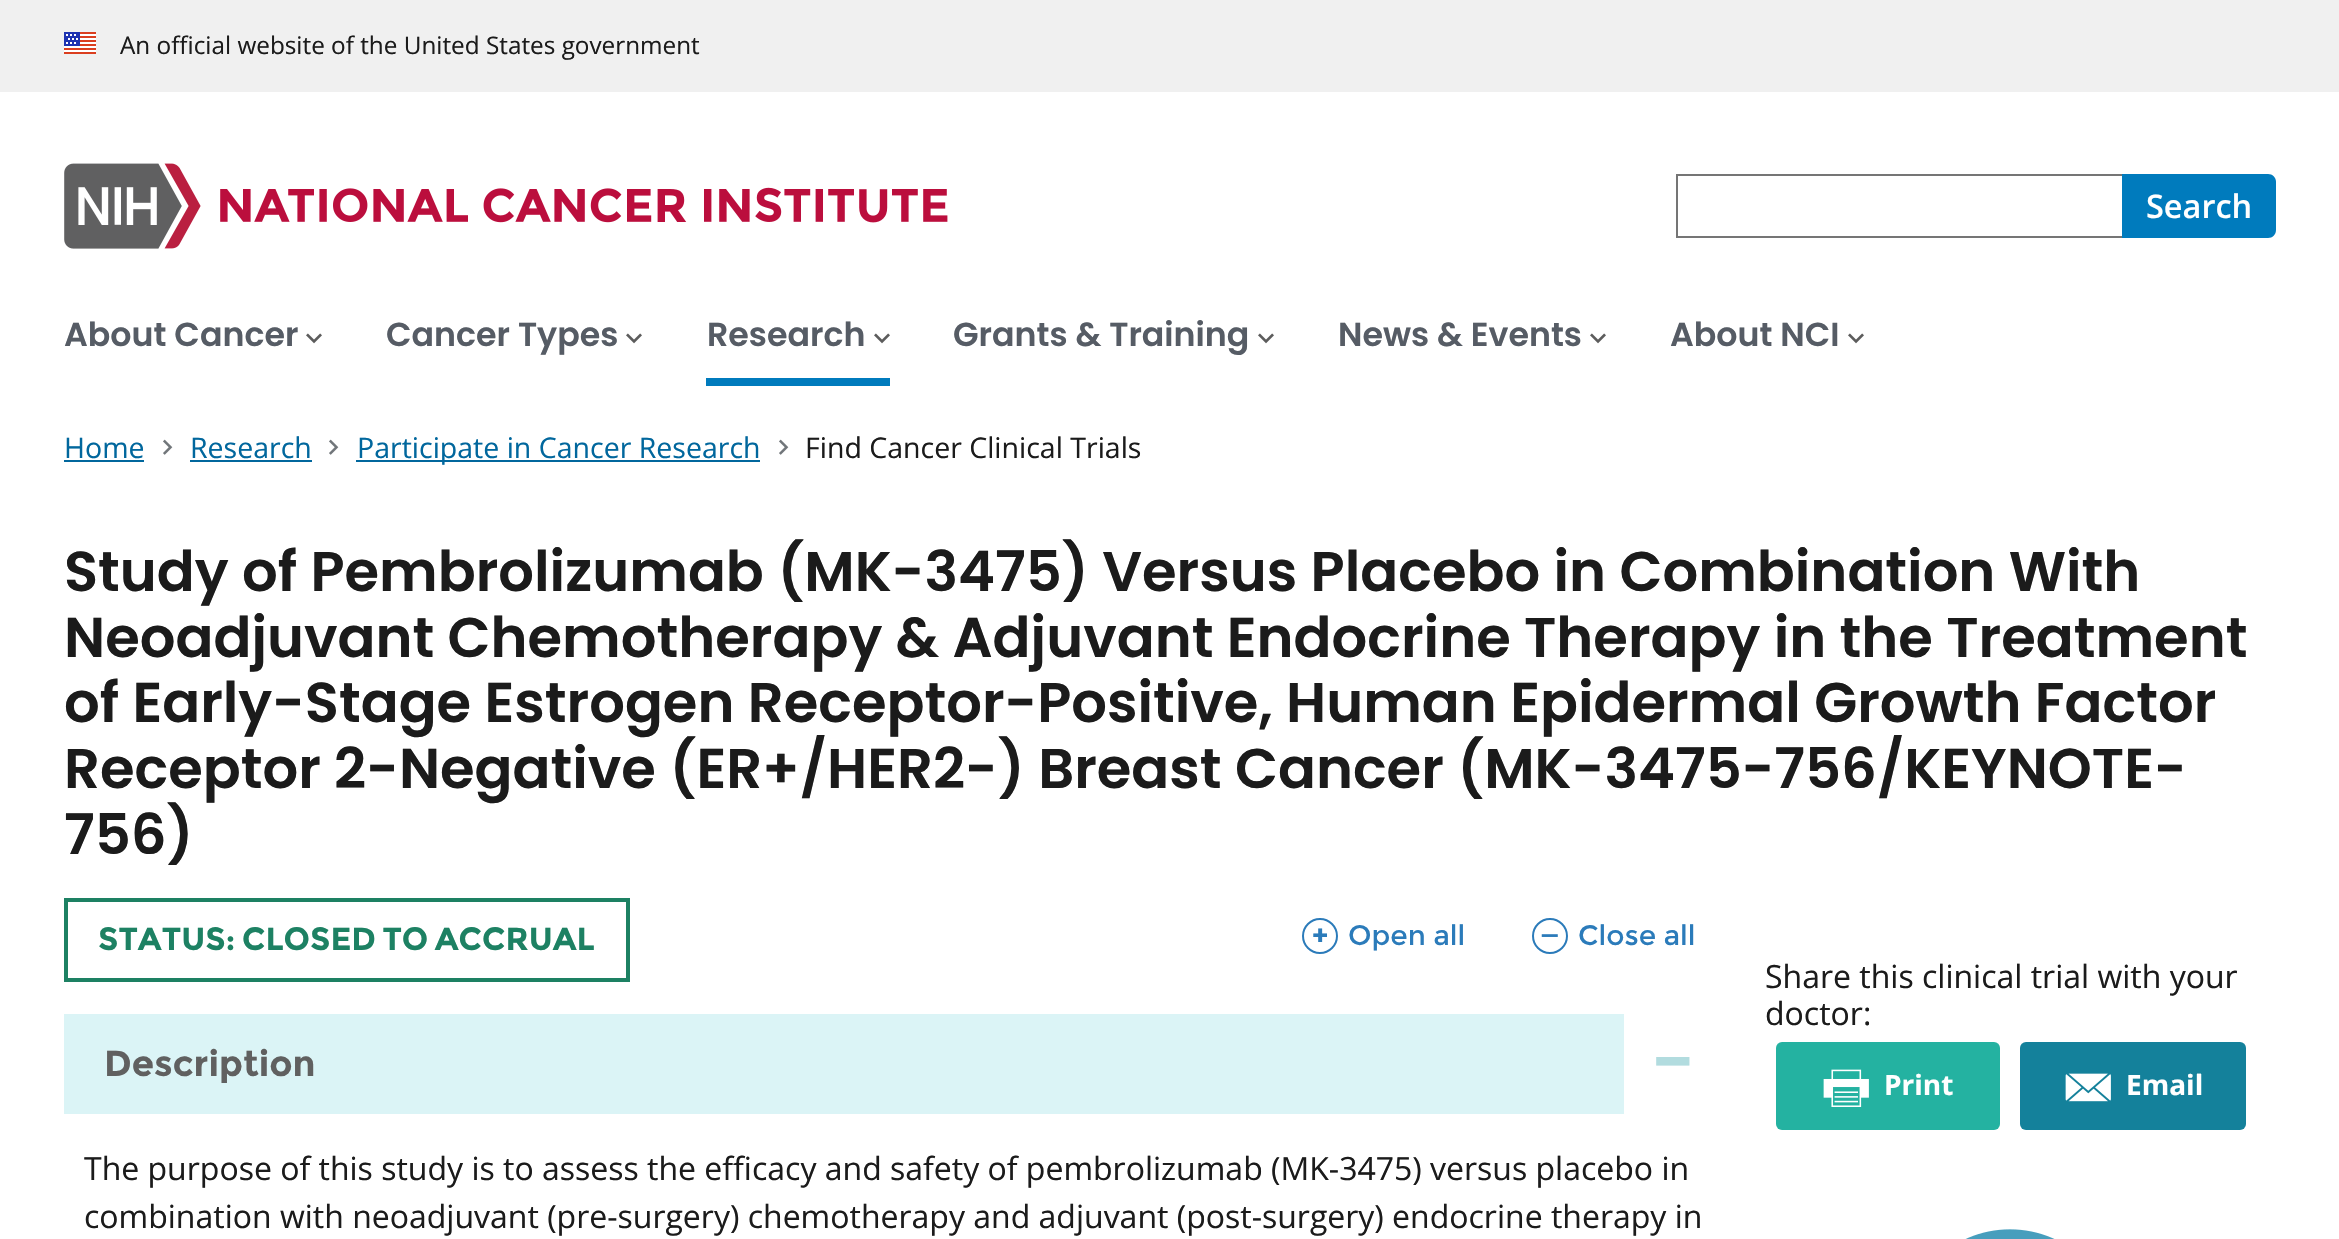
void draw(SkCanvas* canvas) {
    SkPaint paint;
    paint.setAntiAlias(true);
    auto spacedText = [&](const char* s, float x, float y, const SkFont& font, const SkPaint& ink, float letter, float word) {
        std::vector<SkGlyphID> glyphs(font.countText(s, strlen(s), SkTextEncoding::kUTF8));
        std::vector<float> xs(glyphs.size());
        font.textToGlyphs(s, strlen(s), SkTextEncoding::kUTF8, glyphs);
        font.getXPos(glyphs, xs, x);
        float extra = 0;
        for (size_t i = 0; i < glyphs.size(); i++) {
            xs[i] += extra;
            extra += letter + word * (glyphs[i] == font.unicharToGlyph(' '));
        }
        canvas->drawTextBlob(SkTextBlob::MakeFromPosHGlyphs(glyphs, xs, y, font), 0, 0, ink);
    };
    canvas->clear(0xFFFFFFFF);
    paint.setColor(0xFFF0F0F0);
    canvas->drawRect(SkRect::MakeXYWH(0, 0, 2339, 92), paint);
    canvas->drawImageRect(SkImages::DeferredFromEncodedData(SkData::MakeFromFileName("img1.png")), SkRect::MakeXYWH(64, 32, 32, 22), SkSamplingOptions());
    SkFont font1(fontMgr->matchFamilyStyle("Open Sans", SkFontStyle::Normal()), 24.3f);
    font1.setSubpixel(true);
    paint.setColor(0xFF1B1B1B);
    canvas->drawString("An official website of the United States government", 120, 54, font1, paint);
    canvas->drawImageRect(SkImages::DeferredFromEncodedData(SkData::MakeFromFileName("img2.png")), SkRect::MakeXYWH(64, 163, 884, 86), SkSamplingOptions());
    paint.setColor(0xFF757575);
    canvas->drawRect(SkRect::MakeXYWH(1676, 174, 446, 2), paint);
    canvas->drawRect(SkRect::MakeXYWH(1676, 236, 446, 2), paint);
    canvas->drawRect(SkRect::MakeXYWH(1676, 174, 2, 64), paint);
    paint.setColor(0xFF007BBD);
    canvas->drawPath(SkPathBuilder().moveTo(2122, 174).lineTo(2268, 174).cubicTo(2272.5f, 174, 2276, 177.5f, 2276, 182).lineTo(2276, 230).cubicTo(2276, 234.5f, 2272.5f, 238, 2268, 238).lineTo(2122, 238).close().detach(), paint);
    SkFont font2(fontMgr->matchFamilyStyle("Open Sans", SkFontStyle(600, SkFontStyle::kNormal_Width, SkFontStyle::kUpright_Slant)), 32.5f);
    font2.setSubpixel(true);
    paint.setColor(0xFFFFFFFF);
    canvas->drawString("Search", 2146, 218, font2, paint);
    SkFont font3(fontMgr->matchFamilyStyle("Poppins", SkFontStyle(600, SkFontStyle::kNormal_Width, SkFontStyle::kUpright_Slant)), 33.25f);
    font3.setSubpixel(true);
    paint.setColor(0xFF565C65);
    canvas->drawString("About Cancer", 64, 346, font3, paint);
    canvas->drawImageRect(SkImages::DeferredFromEncodedData(SkData::MakeFromFileName("img3.png")), SkRect::MakeXYWH(306, 333, 16, 11), SkSamplingOptions());
    canvas->drawString("Cancer Types", 386, 346, font3, paint);
    canvas->drawImageRect(SkImages::DeferredFromEncodedData(SkData::MakeFromFileName("img3.png")), SkRect::MakeXYWH(626, 333, 16, 11), SkSamplingOptions());
    canvas->drawString("Research", 707, 346, font3, paint);
    canvas->drawImageRect(SkImages::DeferredFromEncodedData(SkData::MakeFromFileName("img3.png")), SkRect::MakeXYWH(874, 333, 16, 11), SkSamplingOptions());
    paint.setColor(0xFF007BBD);
    canvas->drawRect(SkRect::MakeXYWH(706, 378, 184, 8), paint);
    paint.setColor(0xFF565C65);
    canvas->drawString("Grants & Training", 953, 346, font3, paint);
    canvas->drawImageRect(SkImages::DeferredFromEncodedData(SkData::MakeFromFileName("img3.png")), SkRect::MakeXYWH(1258, 333, 16, 11), SkSamplingOptions());
    canvas->drawString("News & Events", 1338, 346, font3, paint);
    canvas->drawImageRect(SkImages::DeferredFromEncodedData(SkData::MakeFromFileName("img3.png")), SkRect::MakeXYWH(1590, 333, 16, 11), SkSamplingOptions());
    canvas->drawString("About NCI", 1670, 346, font3, paint);
    canvas->drawImageRect(SkImages::DeferredFromEncodedData(SkData::MakeFromFileName("img3.png")), SkRect::MakeXYWH(1848, 333, 16, 11), SkSamplingOptions());
    SkFont font4(fontMgr->matchFamilyStyle("Open Sans", SkFontStyle::Normal()), 28.5f);
    font4.setSubpixel(true);
    paint.setColor(0xFF01679D);
    canvas->drawString("Home", 64, 458, font4, paint);
    canvas->drawRect(SkRect::MakeXYWH(64, 460, 80, 2), paint);
    canvas->drawImageRect(SkImages::DeferredFromEncodedData(SkData::MakeFromFileName("img4.png")), SkRect::MakeXYWH(163, 439, 10, 16), SkSamplingOptions());
    canvas->drawString("Research", 190, 458, font4, paint);
    canvas->drawRect(SkRect::MakeXYWH(190, 460, 122, 2), paint);
    canvas->drawImageRect(SkImages::DeferredFromEncodedData(SkData::MakeFromFileName("img4.png")), SkRect::MakeXYWH(329, 439, 10, 16), SkSamplingOptions());
    canvas->drawRect(SkRect::MakeXYWH(356, 460, 404, 2), paint);
    canvas->drawString("Participate in Cancer Research", 357, 458, font4, paint);
    canvas->drawImageRect(SkImages::DeferredFromEncodedData(SkData::MakeFromFileName("img4.png")), SkRect::MakeXYWH(779, 439, 10, 16), SkSamplingOptions());
    paint.setColor(0xFF1B1B1B);
    canvas->drawString("Find Cancer Clinical Trials", 805, 458, font4, paint);
    SkFont font5(fontMgr->matchFamilyStyle("Poppins", SkFontStyle(600, SkFontStyle::kNormal_Width, SkFontStyle::kUpright_Slant)), 56);
    font5.setSubpixel(true);
    canvas->drawString("Study of Pembrolizumab (MK-3475) Versus Placebo in Combination With", 64, 591, font5, paint);
    canvas->drawString("Neoadjuvant Chemotherapy & Adjuvant Endocrine Therapy in the Treatment", 64, 657, font5, paint);
    canvas->drawString("of Early-Stage Estrogen Receptor-Positive, Human Epidermal Growth Factor", 64, 722, font5, paint);
    canvas->drawString("Receptor 2-Negative (ER+/HER2-) Breast Cancer (MK-3475-756/KEYNOTE-", 64, 788, font5, paint);
    canvas->drawString("756)", 64, 854, font5, paint);
    paint.setStyle(SkPaint::kStroke_Style);
    paint.setStrokeWidth(4);
    paint.setColor(0xFF1D8163);
    canvas->drawRect(SkRect::MakeXYWH(66, 900, 562, 80), paint);
    SkFont font6(fontMgr->matchFamilyStyle("Montserrat", SkFontStyle::Bold()), 32);
    font6.setSubpixel(true);
    paint.setStyle(SkPaint::kFill_Style);
    spacedText("STATUS: CLOSED TO ACCRUAL", 98, 950, font6, paint, 0, -2);
    paint.setStyle(SkPaint::kStroke_Style);
    paint.setStrokeWidth(2);
    paint.setColor(0xFF2B7BBA);
    canvas->drawCircle(1320, 936, 17, paint);
    SkFont font7(fontMgr->matchFamilyStyle("Montserrat", SkFontStyle::Bold()), 28);
    font7.setSubpixel(true);
    paint.setStyle(SkPaint::kFill_Style);
    canvas->drawString("+", 1312, 945, font7, paint);
    SkFont font8(fontMgr->matchFamilyStyle("Montserrat", SkFontStyle::Normal()), 28);
    font8.setSubpixel(true);
    canvas->drawString("Open all", 1348, 945, font8, paint);
    paint.setStyle(SkPaint::kStroke_Style);
    canvas->drawCircle(1550, 936, 17, paint);
    paint.setStyle(SkPaint::kFill_Style);
    canvas->drawString("—", 1540, 943, font7, paint);
    canvas->drawString("Close all", 1578, 945, font8, paint);
    paint.setColor(0xFFDBF4F6);
    canvas->drawRect(SkRect::MakeXYWH(64, 1014, 1560, 100), paint);
    SkFont font9(fontMgr->matchFamilyStyle("Montserrat", SkFontStyle::Bold()), 36);
    font9.setSubpixel(true);
    paint.setColor(0xFF606060);
    canvas->drawString("Description", 104, 1076, font9, paint);
    SkFont font10(fontMgr->matchFamilyStyle("Montserrat", SkFontStyle::Bold()), 68);
    font10.setSubpixel(true);
    paint.setColor(0xFFB2DCDF);
    canvas->drawString("−", 1653, 1085, font10, paint);
    SkFont font11(fontMgr->matchFamilyStyle("Open Sans", SkFontStyle::Normal()), 32);
    font11.setSubpixel(true);
    paint.setColor(0xFF1B1B1B);
    canvas->drawString("The purpose of this study is to assess the efficacy and safety of pembrolizumab (MK-3475) versus placebo in", 84, 1180, font11, paint);
    canvas->drawString("combination with neoadjuvant (pre-surgery) chemotherapy and adjuvant (post-surgery) endocrine therapy in", 84, 1228, font11, paint);
    canvas->drawString("Share this clinical trial with your", 1765, 988, font11, paint);
    canvas->drawString("doctor:", 1765, 1025, font11, paint);
    paint.setColor(0xFF24B2A1);
    canvas->drawRoundRect(SkRect::MakeXYWH(1776, 1042, 224, 88), 6, 6, paint);
    canvas->drawImageRect(SkImages::DeferredFromEncodedData(SkData::MakeFromFileName("img5.png")), SkRect::MakeXYWH(1823, 1069, 46, 38), SkSamplingOptions());
    SkFont font12(fontMgr->matchFamilyStyle("Open Sans", SkFontStyle::Bold()), 28);
    font12.setSubpixel(true);
    paint.setColor(0xFFFFFFFF);
    canvas->drawString("Print", 1884, 1095, font12, paint);
    paint.setColor(0xFF14819B);
    canvas->drawRoundRect(SkRect::MakeXYWH(2020, 1042, 226, 88), 6, 6, paint);
    canvas->drawImageRect(SkImages::DeferredFromEncodedData(SkData::MakeFromFileName("img6.png")), SkRect::MakeXYWH(2065, 1073, 46, 29), SkSamplingOptions());
    paint.setColor(0xFFFFFFFF);
    canvas->drawString("Email", 2126, 1095, font12, paint);
    canvas->drawImageRect(SkImages::DeferredFromEncodedData(SkData::MakeFromFileName("img7.png")), SkRect::MakeXYWH(1965, 1229, 90, 10), SkSamplingOptions());
}
